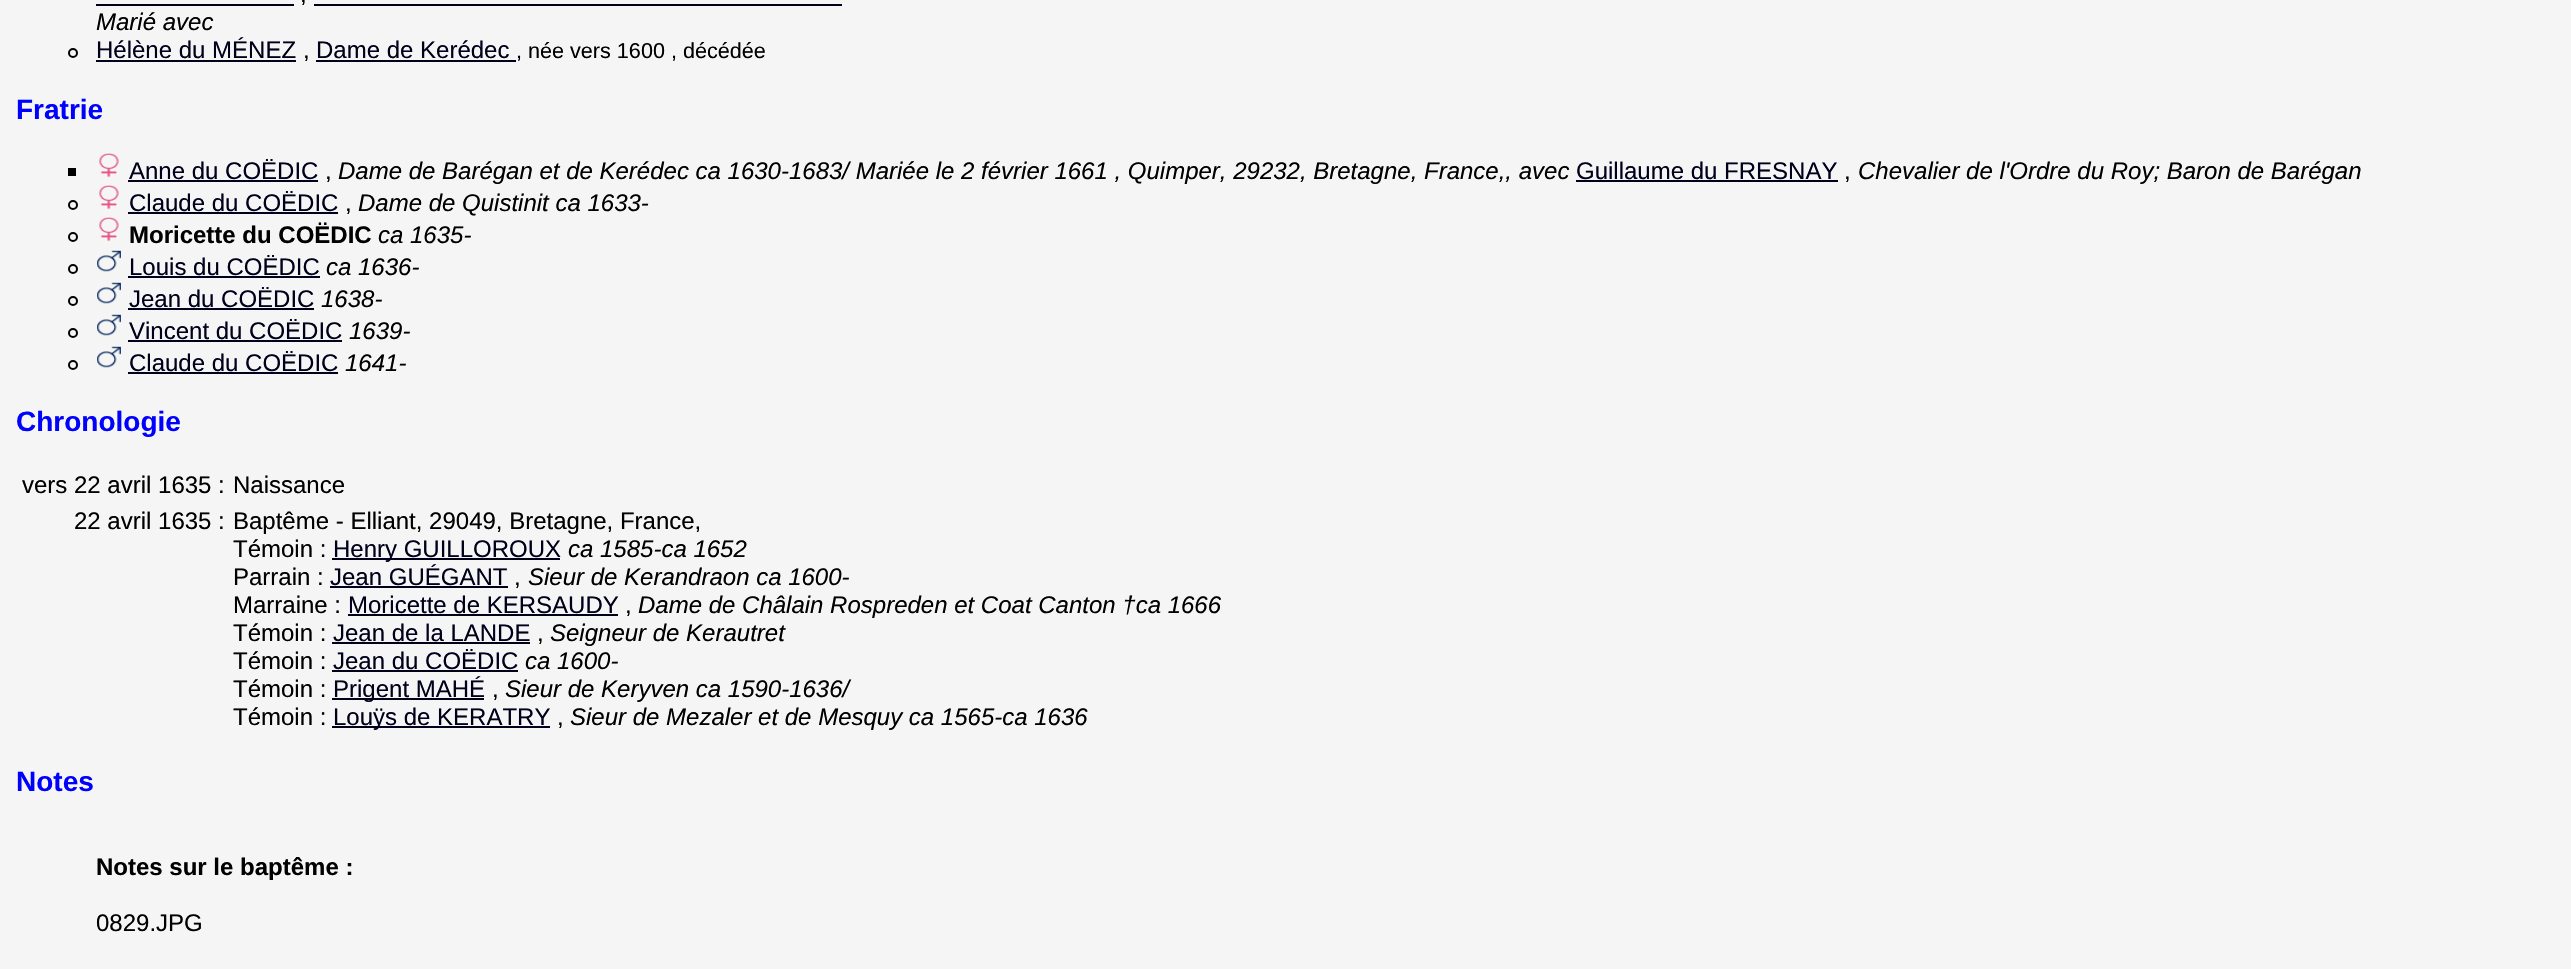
void draw(SkCanvas* canvas) {
    SkPaint paint;
    paint.setAntiAlias(true);
    canvas->clear(0xFFF5F5F5);
    paint.setColor(0xFF00001A);
    canvas->drawRect(SkRect::MakeXYWH(96, 4, 198, 2), paint);
    SkFont font1(fontMgr->matchFamilyStyle("Liberation Sans", SkFontStyle::Normal()), 24);
    font1.setSubpixel(true);
    paint.setColor(0xFF000000);
    canvas->drawString(",", 300, 2, font1, paint);
    paint.setColor(0xFF00001A);
    canvas->drawRect(SkRect::MakeXYWH(314, 4, 528, 2), paint);
    SkFont font2(fontMgr->matchFamilyStyle("Liberation Sans", SkFontStyle::Italic()), 24);
    font2.setSubpixel(true);
    paint.setColor(0xFF000000);
    canvas->drawString("Marié avec", 96, 30, font2, paint);
    paint.setStyle(SkPaint::kStroke_Style);
    paint.setStrokeWidth(2);
    canvas->drawCircle(73, 53, 4, paint);
    paint.setStyle(SkPaint::kFill_Style);
    paint.setColor(0xFF00001A);
    canvas->drawString("Hélène du MÉNEZ", 96, 58, font1, paint);
    canvas->drawRect(SkRect::MakeXYWH(96, 60, 200, 2), paint);
    paint.setColor(0xFF000000);
    canvas->drawString(",", 303, 58, font1, paint);
    paint.setColor(0xFF00001A);
    canvas->drawString("Dame de Kerédec", 316, 58, font1, paint);
    canvas->drawRect(SkRect::MakeXYWH(316, 60, 200, 2), paint);
    SkFont font3(fontMgr->matchFamilyStyle("Liberation Sans", SkFontStyle::Normal()), 21.6f);
    font3.setSubpixel(true);
    paint.setColor(0xFF000000);
    canvas->drawString(", née vers 1600 , décédée", 516, 58, font3, paint);
    SkFont font4(fontMgr->matchFamilyStyle("Liberation Sans", SkFontStyle::Bold()), 28);
    font4.setSubpixel(true);
    paint.setColor(0xFF0000FF);
    canvas->drawString("Fratrie", 16, 119, font4, paint);
    paint.setColor(0xFF000000);
    canvas->drawRect(SkRect::MakeXYWH(68, 168, 8, 8), paint);
    canvas->drawImageRect(SkImages::DeferredFromEncodedData(SkData::MakeFromFileName("img1.png")), SkRect::MakeXYWH(99, 153, 20, 25), SkSamplingOptions());
    paint.setColor(0xFF00001A);
    canvas->drawString("Anne du COËDIC", 129, 179, font1, paint);
    canvas->drawRect(SkRect::MakeXYWH(128, 180, 190, 2), paint);
    paint.setColor(0xFF000000);
    canvas->drawString("Dame de Barégan et de Kerédec ca 1630-1683/ Mariée le 2 février 1661 , Quimper, 29232, Bretagne, France,, avec", 338, 179, font2, paint);
    paint.setColor(0xFF00001A);
    canvas->drawString("Guillaume du FRESNAY", 1576, 179, font1, paint);
    canvas->drawRect(SkRect::MakeXYWH(1576, 180, 262, 2), paint);
    paint.setColor(0xFF000000);
    canvas->drawString("Chevalier de l'Ordre du Roy; Baron de Barégan", 1858, 179, font2, paint);
    canvas->drawString(",", 325, 179, font1, paint);
    canvas->drawString(",", 1844, 179, font1, paint);
    paint.setStyle(SkPaint::kStroke_Style);
    canvas->drawCircle(73, 205, 4, paint);
    canvas->drawImageRect(SkImages::DeferredFromEncodedData(SkData::MakeFromFileName("img1.png")), SkRect::MakeXYWH(99, 185, 20, 25), SkSamplingOptions());
    paint.setStyle(SkPaint::kFill_Style);
    paint.setColor(0xFF00001A);
    canvas->drawString("Claude du COËDIC", 129, 211, font1, paint);
    canvas->drawRect(SkRect::MakeXYWH(128, 212, 210, 2), paint);
    paint.setColor(0xFF000000);
    canvas->drawString("Dame de Quistinit ca 1633-", 358, 211, font2, paint);
    canvas->drawString(",", 345, 211, font1, paint);
    paint.setStyle(SkPaint::kStroke_Style);
    canvas->drawCircle(73, 237, 4, paint);
    canvas->drawImageRect(SkImages::DeferredFromEncodedData(SkData::MakeFromFileName("img1.png")), SkRect::MakeXYWH(99, 217, 20, 25), SkSamplingOptions());
    SkFont font5(fontMgr->matchFamilyStyle("Liberation Sans", SkFontStyle::Bold()), 24);
    font5.setSubpixel(true);
    paint.setStyle(SkPaint::kFill_Style);
    canvas->drawString("Moricette du COËDIC", 129, 243, font5, paint);
    canvas->drawString("ca 1635-", 378, 243, font2, paint);
    paint.setStyle(SkPaint::kStroke_Style);
    canvas->drawCircle(73, 269, 4, paint);
    canvas->drawImageRect(SkImages::DeferredFromEncodedData(SkData::MakeFromFileName("img2.png")), SkRect::MakeXYWH(97, 250, 24, 22), SkSamplingOptions());
    paint.setStyle(SkPaint::kFill_Style);
    paint.setColor(0xFF00001A);
    canvas->drawString("Louis du COËDIC", 129, 275, font1, paint);
    canvas->drawRect(SkRect::MakeXYWH(128, 276, 192, 2), paint);
    paint.setColor(0xFF000000);
    canvas->drawString("ca 1636-", 326, 275, font2, paint);
    paint.setStyle(SkPaint::kStroke_Style);
    canvas->drawCircle(73, 301, 4, paint);
    canvas->drawImageRect(SkImages::DeferredFromEncodedData(SkData::MakeFromFileName("img2.png")), SkRect::MakeXYWH(97, 282, 24, 22), SkSamplingOptions());
    paint.setStyle(SkPaint::kFill_Style);
    paint.setColor(0xFF00001A);
    canvas->drawString("Jean du COËDIC", 129, 307, font1, paint);
    canvas->drawRect(SkRect::MakeXYWH(128, 308, 186, 2), paint);
    paint.setColor(0xFF000000);
    canvas->drawString("1638-", 321, 307, font2, paint);
    paint.setStyle(SkPaint::kStroke_Style);
    canvas->drawCircle(73, 333, 4, paint);
    canvas->drawImageRect(SkImages::DeferredFromEncodedData(SkData::MakeFromFileName("img2.png")), SkRect::MakeXYWH(97, 314, 24, 22), SkSamplingOptions());
    paint.setStyle(SkPaint::kFill_Style);
    paint.setColor(0xFF00001A);
    canvas->drawString("Vincent du COËDIC", 129, 339, font1, paint);
    canvas->drawRect(SkRect::MakeXYWH(128, 340, 214, 2), paint);
    paint.setColor(0xFF000000);
    canvas->drawString("1639-", 349, 339, font2, paint);
    paint.setStyle(SkPaint::kStroke_Style);
    canvas->drawCircle(73, 365, 4, paint);
    canvas->drawImageRect(SkImages::DeferredFromEncodedData(SkData::MakeFromFileName("img2.png")), SkRect::MakeXYWH(97, 346, 24, 22), SkSamplingOptions());
    paint.setStyle(SkPaint::kFill_Style);
    paint.setColor(0xFF00001A);
    canvas->drawString("Claude du COËDIC", 129, 371, font1, paint);
    canvas->drawRect(SkRect::MakeXYWH(128, 372, 210, 2), paint);
    paint.setColor(0xFF000000);
    canvas->drawString("1641-", 345, 371, font2, paint);
    paint.setColor(0xFF0000FF);
    canvas->drawString("Chronologie", 16, 431, font4, paint);
    paint.setColor(0xFF000000);
    canvas->drawString("vers 22 avril 1635 :", 22, 493, font1, paint);
    canvas->drawString("Naissance", 233, 493, font1, paint);
    canvas->drawString("22 avril 1635 :", 74, 529, font1, paint);
    canvas->drawString("Baptême - Elliant, 29049, Bretagne, France,", 233, 529, font1, paint);
    canvas->drawString("Témoin :", 233, 557, font1, paint);
    paint.setColor(0xFF00001A);
    canvas->drawRect(SkRect::MakeXYWH(332, 558, 228, 2), paint);
    canvas->drawString("Henry GUILLOROUX", 333, 557, font1, paint);
    paint.setColor(0xFF000000);
    canvas->drawString("ca 1585-ca 1652", 568, 557, font2, paint);
    canvas->drawString("Parrain :", 233, 585, font1, paint);
    paint.setColor(0xFF00001A);
    canvas->drawString("Jean GUÉGANT", 330, 585, font1, paint);
    canvas->drawRect(SkRect::MakeXYWH(330, 586, 178, 2), paint);
    paint.setColor(0xFF000000);
    canvas->drawString(",", 514, 585, font1, paint);
    canvas->drawString("Sieur de Kerandraon ca 1600-", 528, 585, font2, paint);
    canvas->drawString("Marraine :", 233, 613, font1, paint);
    paint.setColor(0xFF00001A);
    canvas->drawString("Moricette de KERSAUDY", 348, 613, font1, paint);
    canvas->drawRect(SkRect::MakeXYWH(348, 614, 270, 2), paint);
    paint.setColor(0xFF000000);
    canvas->drawString(",", 625, 613, font1, paint);
    canvas->drawString("Dame de Châlain Rospreden et Coat Canton †ca 1666", 638, 613, font2, paint);
    canvas->drawString("Témoin :", 233, 641, font1, paint);
    paint.setColor(0xFF00001A);
    canvas->drawString("Jean de la LANDE", 333, 641, font1, paint);
    canvas->drawRect(SkRect::MakeXYWH(332, 642, 198, 2), paint);
    paint.setColor(0xFF000000);
    canvas->drawString(",", 537, 641, font1, paint);
    canvas->drawString("Seigneur de Kerautret", 550, 641, font2, paint);
    canvas->drawString("Témoin :", 233, 669, font1, paint);
    paint.setColor(0xFF00001A);
    canvas->drawString("Jean du COËDIC", 333, 669, font1, paint);
    canvas->drawRect(SkRect::MakeXYWH(332, 670, 186, 2), paint);
    paint.setColor(0xFF000000);
    canvas->drawString("ca 1600-", 525, 669, font2, paint);
    canvas->drawString("Témoin :", 233, 697, font1, paint);
    paint.setColor(0xFF00001A);
    canvas->drawRect(SkRect::MakeXYWH(332, 698, 152, 2), paint);
    canvas->drawString("Prigent MAHÉ", 333, 697, font1, paint);
    paint.setColor(0xFF000000);
    canvas->drawString(",", 492, 697, font1, paint);
    canvas->drawString("Sieur de Keryven ca 1590-1636/", 505, 697, font2, paint);
    canvas->drawString("Témoin :", 233, 725, font1, paint);
    paint.setColor(0xFF00001A);
    canvas->drawRect(SkRect::MakeXYWH(332, 726, 218, 2), paint);
    canvas->drawString("Louÿs de KERATRY", 333, 725, font1, paint);
    paint.setColor(0xFF000000);
    canvas->drawString(",", 557, 725, font1, paint);
    canvas->drawString("Sieur de Mezaler et de Mesquy ca 1565-ca 1636", 570, 725, font2, paint);
    paint.setColor(0xFF0000FF);
    canvas->drawString("Notes", 16, 791, font4, paint);
    paint.setColor(0xFF000000);
    canvas->drawString("Notes sur le baptême :", 96, 875, font5, paint);
    canvas->drawString("0829.JPG", 96, 931, font1, paint);
}
